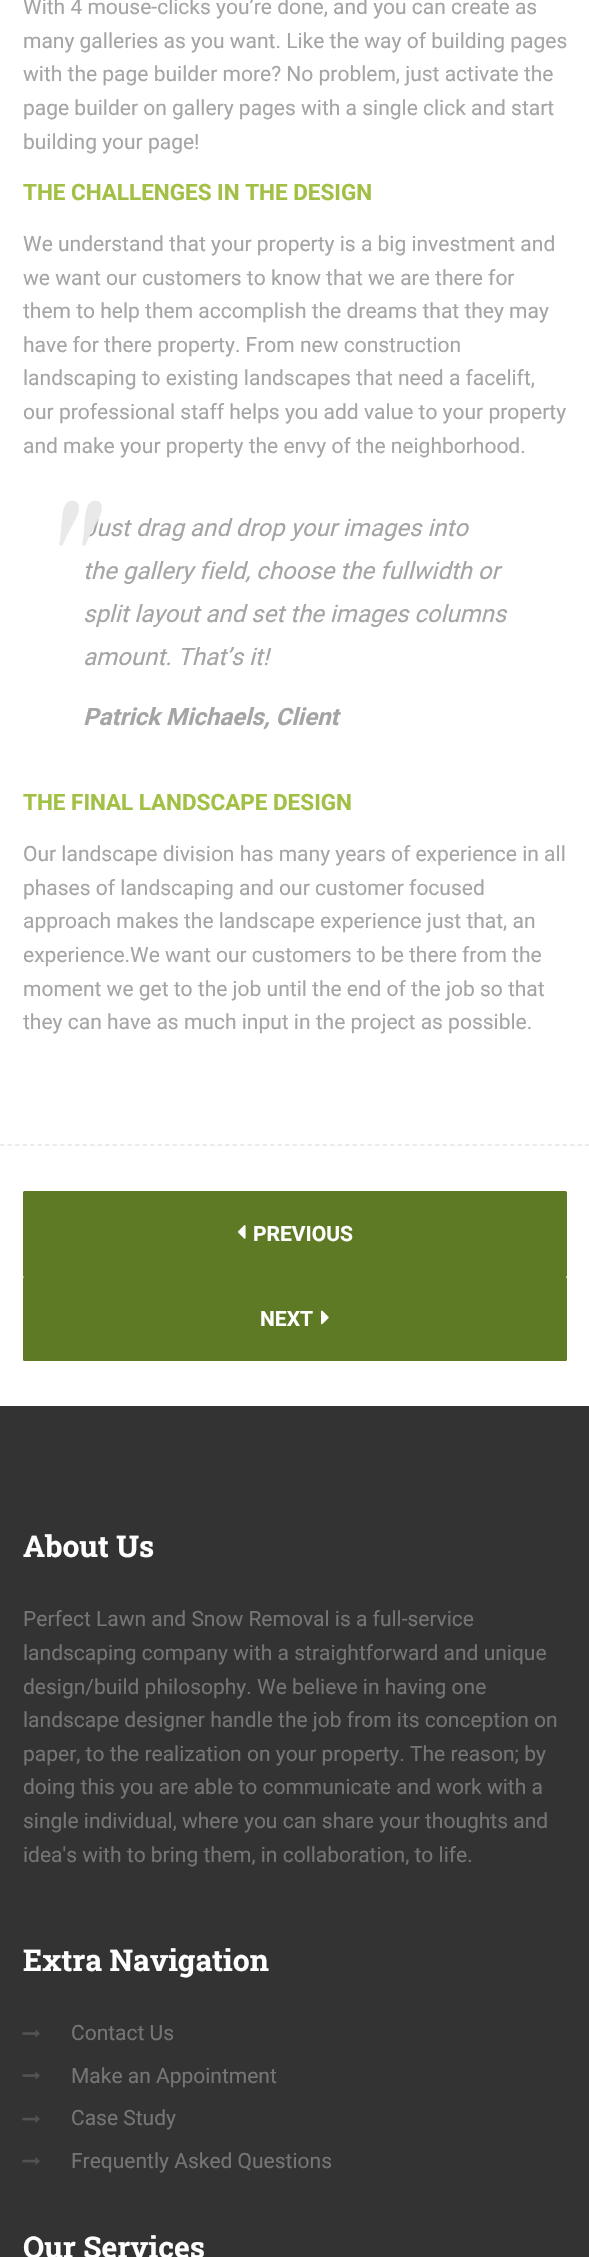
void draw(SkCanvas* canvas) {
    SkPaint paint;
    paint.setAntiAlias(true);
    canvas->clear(0xFFFFFFFF);
    SkFont font1(fontMgr->matchFamilyStyle("Roboto", SkFontStyle::Normal()), 21);
    font1.setSubpixel(true);
    paint.setColor(0xFFA5A5A5);
    canvas->drawString("With 4 mouse-clicks you’re done, and you can create as", 23, 14, font1, paint);
    canvas->drawString("many galleries as you want. Like the way of building pages", 23, 48, font1, paint);
    canvas->drawString("with the page builder more? No problem, just activate the", 23, 81, font1, paint);
    canvas->drawString("page builder on gallery pages with a single click and start", 23, 115, font1, paint);
    canvas->drawString("building your page!", 23, 149, font1, paint);
    SkFont font2(fontMgr->matchFamilyStyle("Roboto", SkFontStyle::Bold()), 22.5f);
    font2.setSubpixel(true);
    paint.setColor(0xFFA2C046);
    canvas->drawString("THE CHALLENGES IN THE DESIGN", 23, 200, font2, paint);
    paint.setColor(0xFFA5A5A5);
    canvas->drawString("We understand that your property is a big investment and", 23, 251, font1, paint);
    canvas->drawString("we want our customers to know that we are there for", 23, 285, font1, paint);
    canvas->drawString("them to help them accomplish the dreams that they may", 23, 318, font1, paint);
    canvas->drawString("have for there property. From new construction", 23, 352, font1, paint);
    canvas->drawString("landscaping to existing landscapes that need a facelift,", 23, 385, font1, paint);
    canvas->drawString("our professional staff helps you add value to your property", 23, 419, font1, paint);
    canvas->drawString("and make your property the envy of the neighborhood.", 23, 453, font1, paint);
    SkFont font3(fontMgr->matchFamilyStyle("Roboto", SkFontStyle::Italic()), 24);
    font3.setSubpixel(true);
    canvas->drawString("Just drag and drop your images into", 83, 536, font3, paint);
    SkFont font4(fontMgr->matchFamilyStyle("Playfair Display", SkFontStyle::Italic()), 210);
    font4.setSubpixel(true);
    paint.setColor(0xFFE9E9E9);
    canvas->drawString("\"", 30, 654, font4, paint);
    paint.setColor(0xFFA5A5A5);
    canvas->drawString("the gallery field, choose the fullwidth or", 83, 579, font3, paint);
    canvas->drawString("split layout and set the images columns", 83, 622, font3, paint);
    canvas->drawString("amount. That’s it!", 83, 665, font3, paint);
    SkFont font5(fontMgr->matchFamilyStyle("Roboto", SkFontStyle::BoldItalic()), 24);
    font5.setSubpixel(true);
    canvas->drawString("Patrick Michaels, Client", 83, 725, font5, paint);
    paint.setColor(0xFFA2C046);
    canvas->drawString("THE FINAL LANDSCAPE DESIGN", 23, 810, font2, paint);
    paint.setColor(0xFFA5A5A5);
    canvas->drawString("Our landscape division has many years of experience in all", 23, 861, font1, paint);
    canvas->drawString("phases of landscaping and our customer focused", 23, 895, font1, paint);
    canvas->drawString("approach makes the landscape experience just that, an", 23, 928, font1, paint);
    canvas->drawString("experience.We want our customers to be there from the", 23, 962, font1, paint);
    canvas->drawString("moment we get to the job until the end of the job so that", 23, 996, font1, paint);
    canvas->drawString("they can have as much input in the project as possible.", 23, 1029, font1, paint);
    paint.setStyle(SkPaint::kStroke_Style);
    paint.setStrokeWidth(1.5f);
    paint.setColor(0xFFE6E6E6);
    paint.setPathEffect(SkDashPathEffect::Make({{4.5f, 3}}, 0));
    canvas->drawPath(SkPathBuilder().moveTo(0, 1145).lineTo(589.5f, 1145).detach(), paint);
    paint.setPathEffect(nullptr);
    paint.setStyle(SkPaint::kFill_Style);
    paint.setColor(0xFF5F7A24);
    canvas->drawRoundRect(SkRect::MakeXYWH(23, 1191, 544, 86), 1.5f, 1.5f, paint);
    canvas->drawImageRect(SkImages::DeferredFromEncodedData(SkData::MakeFromFileName("img1.png")), SkRect::MakeXYWH(237, 1225, 9, 14), SkSamplingOptions());
    SkFont font6(fontMgr->matchFamilyStyle("Roboto", SkFontStyle::Bold()), 21);
    font6.setSubpixel(true);
    paint.setColor(0xFFFFFFFF);
    canvas->drawString("PREVIOUS", 253, 1241, font6, paint);
    paint.setColor(0xFF5F7A24);
    canvas->drawRoundRect(SkRect::MakeXYWH(23, 1277, 544, 84), 1.5f, 1.5f, paint);
    paint.setColor(0xFFFFFFFF);
    canvas->drawString("NEXT", 260, 1326, font6, paint);
    canvas->drawImageRect(SkImages::DeferredFromEncodedData(SkData::MakeFromFileName("img2.png")), SkRect::MakeXYWH(321, 1310, 8, 15), SkSamplingOptions());
    paint.setColor(0xFF333333);
    canvas->drawRect(SkRect::MakeXYWH(0, 1406, 589, 851), paint);
    SkFont font7(fontMgr->matchFamilyStyle("Roboto Slab", SkFontStyle::Bold()), 30);
    font7.setSubpixel(true);
    paint.setColor(0xFFFFFFFF);
    canvas->drawString("About Us", 23, 1557, font7, paint);
    paint.setColor(0xFF757575);
    canvas->drawString("Perfect Lawn and Snow Removal is a full-service", 23, 1626, font1, paint);
    canvas->drawString("landscaping company with a straightforward and unique", 23, 1660, font1, paint);
    canvas->drawString("design/build philosophy. We believe in having one", 23, 1694, font1, paint);
    canvas->drawString("landscape designer handle the job from its conception on", 23, 1727, font1, paint);
    canvas->drawString("paper, to the realization on your property. The reason; by", 23, 1761, font1, paint);
    canvas->drawString("doing this you are able to communicate and work with a", 23, 1794, font1, paint);
    canvas->drawString("single individual, where you can share your thoughts and", 23, 1828, font1, paint);
    canvas->drawString("idea's with to bring them, in collaboration, to life.", 23, 1862, font1, paint);
    paint.setColor(0xFFFFFFFF);
    canvas->drawString("Extra Navigation", 23, 1971, font7, paint);
    canvas->drawImageRect(SkImages::DeferredFromEncodedData(SkData::MakeFromFileName("img3.png")), SkRect::MakeXYWH(22, 2030, 18, 8), SkSamplingOptions());
    paint.setColor(0xFF757575);
    canvas->drawString("Contact Us", 71, 2040, font1, paint);
    canvas->drawImageRect(SkImages::DeferredFromEncodedData(SkData::MakeFromFileName("img3.png")), SkRect::MakeXYWH(22, 2072, 18, 8), SkSamplingOptions());
    canvas->drawString("Make an Appointment", 71, 2083, font1, paint);
    canvas->drawImageRect(SkImages::DeferredFromEncodedData(SkData::MakeFromFileName("img4.png")), SkRect::MakeXYWH(22, 2115, 18, 8), SkSamplingOptions());
    canvas->drawString("Case Study", 71, 2125, font1, paint);
    canvas->drawImageRect(SkImages::DeferredFromEncodedData(SkData::MakeFromFileName("img4.png")), SkRect::MakeXYWH(22, 2157, 18, 8), SkSamplingOptions());
    canvas->drawString("Frequently Asked Questions", 71, 2168, font1, paint);
    paint.setColor(0xFFFFFFFF);
    canvas->drawString("Our Services", 23, 2258, font7, paint);
}
